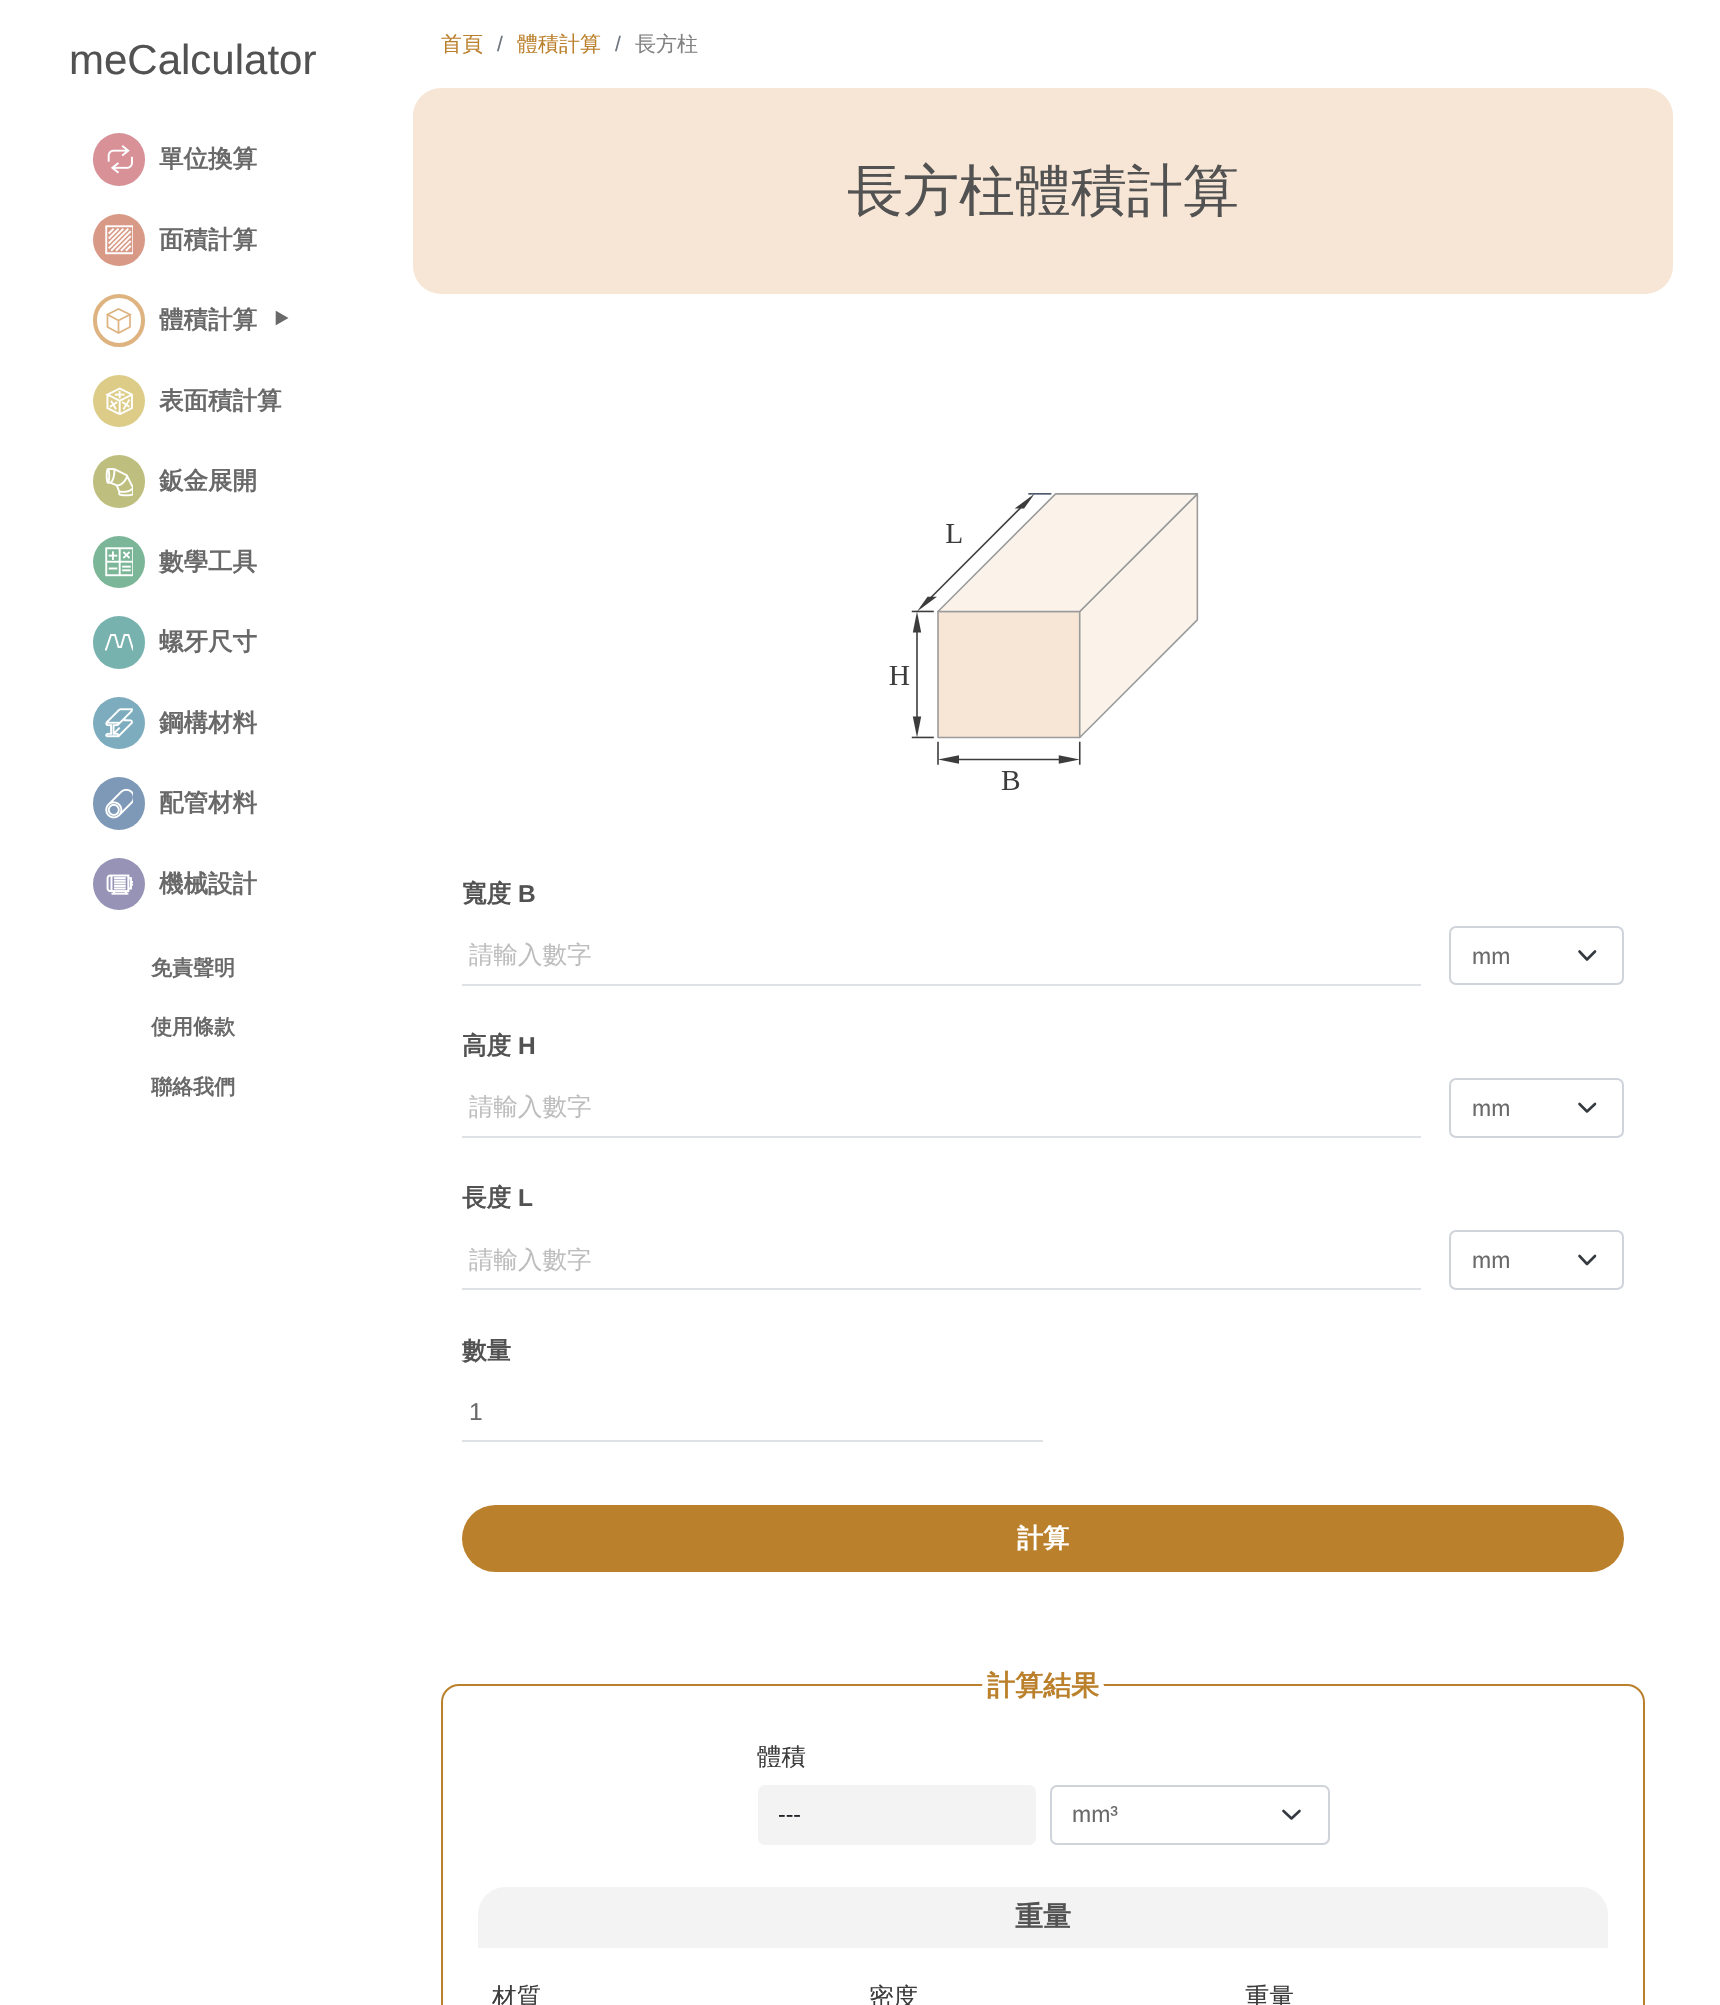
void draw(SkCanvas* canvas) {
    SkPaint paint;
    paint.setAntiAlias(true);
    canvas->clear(0xFFFFFFFF);
    SkFont font1(fontMgr->matchFamilyStyle("Liberation Sans", SkFontStyle::Normal()), 42);
    font1.setSubpixel(true);
    paint.setColor(0xFF525252);
    canvas->drawString("meCalculator", 69, 74, font1, paint);
    paint.setColor(0xFFD79197);
    canvas->drawRoundRect(SkRect::MakeXYWH(93, 133, 52, 53), 26, 26, paint);
    canvas->drawImageRect(SkImages::DeferredFromEncodedData(SkData::MakeFromFileName("img1.png")), SkRect::MakeXYWH(107, 145, 26, 29), SkSamplingOptions());
    SkFont font2(fontMgr->matchFamilyStyle("WenQuanYi Zen Hei", SkFontStyle::Bold()), 24.5f);
    font2.setSubpixel(true);
    paint.setColor(0xFF696969);
    canvas->drawString("單位換算", 159, 167, font2, paint);
    paint.setColor(0xFFD89A86);
    canvas->drawCircle(119, 240, 26, paint);
    canvas->drawImageRect(SkImages::DeferredFromEncodedData(SkData::MakeFromFileName("img2.png")), SkRect::MakeXYWH(105, 225, 28, 30), SkSamplingOptions());
    paint.setColor(0xFF696969);
    canvas->drawString("面積計算", 159, 248, font2, paint);
    paint.setStyle(SkPaint::kStroke_Style);
    paint.setStrokeWidth(4);
    paint.setColor(0xFFDEB380);
    canvas->drawRoundRect(SkRect::MakeXYWH(95, 296, 48, 49), 24, 24, paint);
    paint.setStrokeWidth(1.7f);
    canvas->drawPath(SkPathBuilder().moveTo(130, 314.5f).lineTo(130, 327).lineTo(118.5f, 333).lineTo(107.5f, 327).lineTo(107.5f, 314.5f).moveTo(118.5f, 333).lineTo(118.5f, 320.5f).lineTo(130, 314.5f).lineTo(118.5f, 309).lineTo(107.5f, 314.5f).lineTo(118.5f, 320.5f).detach(), paint);
    paint.setStyle(SkPaint::kFill_Style);
    paint.setColor(0xFF696969);
    canvas->drawString("體積計算", 159, 328, font2, paint);
    SkFont font3(fontMgr->matchFamilyStyle("FreeSans", SkFontStyle::Bold()), 24.5f);
    font3.setSubpixel(true);
    canvas->drawString("⯈", 271, 328, font3, paint);
    paint.setColor(0xFFDCCC88);
    canvas->drawCircle(119, 401, 26, paint);
    canvas->drawImageRect(SkImages::DeferredFromEncodedData(SkData::MakeFromFileName("img3.png")), SkRect::MakeXYWH(105, 387, 28, 28), SkSamplingOptions());
    paint.setColor(0xFF696969);
    canvas->drawString("表面積計算", 159, 409, font2, paint);
    paint.setColor(0xFFBEBF7E);
    canvas->drawRoundRect(SkRect::MakeXYWH(93, 455, 52, 53), 26, 26, paint);
    canvas->drawImageRect(SkImages::DeferredFromEncodedData(SkData::MakeFromFileName("img4.png")), SkRect::MakeXYWH(105, 468, 28, 29), SkSamplingOptions());
    paint.setColor(0xFF696969);
    canvas->drawString("鈑金展開", 159, 489, font2, paint);
    paint.setColor(0xFF7CB698);
    canvas->drawCircle(119, 562, 26, paint);
    canvas->drawImageRect(SkImages::DeferredFromEncodedData(SkData::MakeFromFileName("img5.png")), SkRect::MakeXYWH(105, 547, 28, 30), SkSamplingOptions());
    paint.setColor(0xFF696969);
    canvas->drawString("數學工具", 159, 570, font2, paint);
    paint.setColor(0xFF77B2AE);
    canvas->drawRoundRect(SkRect::MakeXYWH(93, 616, 52, 53), 26, 26, paint);
    canvas->save();
    canvas->clipRect(SkRect::MakeXYWH(105, 618, 28, 49));
    paint.setStyle(SkPaint::kStroke_Style);
    paint.setStrokeWidth(1.9f);
    paint.setColor(0xFFFFFFFF);
    canvas->drawPath(SkPathBuilder().moveTo(105, 649.5f).lineTo(106, 649.5f).lineTo(111, 635).lineTo(115, 635).lineTo(118.5f, 647).lineTo(121, 647).lineTo(124.5f, 635).lineTo(128.5f, 635).lineTo(133, 649.5f).lineTo(134.5f, 649.5f).detach(), paint);
    canvas->restore();
    paint.setStyle(SkPaint::kFill_Style);
    paint.setColor(0xFF696969);
    canvas->drawString("螺牙尺寸", 159, 650, font2, paint);
    paint.setColor(0xFF7CACBD);
    canvas->drawCircle(119, 723, 26, paint);
    canvas->drawImageRect(SkImages::DeferredFromEncodedData(SkData::MakeFromFileName("img6.png")), SkRect::MakeXYWH(105, 708, 28, 30), SkSamplingOptions());
    paint.setColor(0xFF696969);
    canvas->drawString("鋼構材料", 159, 731, font2, paint);
    paint.setColor(0xFF7E99B7);
    canvas->drawRoundRect(SkRect::MakeXYWH(93, 777, 52, 53), 26, 26, paint);
    canvas->drawImageRect(SkImages::DeferredFromEncodedData(SkData::MakeFromFileName("img7.png")), SkRect::MakeXYWH(105, 788, 28, 31), SkSamplingOptions());
    paint.setColor(0xFF696969);
    canvas->drawString("配管材料", 159, 811, font2, paint);
    paint.setColor(0xFF9693B6);
    canvas->drawCircle(119, 884, 26, paint);
    canvas->drawImageRect(SkImages::DeferredFromEncodedData(SkData::MakeFromFileName("img8.png")), SkRect::MakeXYWH(106, 874, 27, 21), SkSamplingOptions());
    paint.setColor(0xFF696969);
    canvas->drawString("機械設計", 159, 892, font2, paint);
    SkFont font4(fontMgr->matchFamilyStyle("WenQuanYi Zen Hei", SkFontStyle::Bold()), 21);
    font4.setSubpixel(true);
    canvas->drawString("免責聲明", 151, 975, font4, paint);
    canvas->drawString("使用條款", 151, 1034, font4, paint);
    canvas->drawString("聯絡我們", 151, 1094, font4, paint);
    SkFont font5(fontMgr->matchFamilyStyle("WenQuanYi Zen Hei", SkFontStyle(500, SkFontStyle::kNormal_Width, SkFontStyle::kUpright_Slant)), 21);
    font5.setSubpixel(true);
    paint.setColor(0xFFBB802B);
    canvas->drawString("首頁", 441, 51, font5, paint);
    SkFont font6(fontMgr->matchFamilyStyle("Liberation Sans", SkFontStyle::Normal()), 21);
    font6.setSubpixel(true);
    paint.setColor(0xFF6C757D);
    canvas->drawString("/", 497, 51, font6, paint);
    paint.setColor(0xFFBB802B);
    canvas->drawString("體積計算", 517, 51, font5, paint);
    paint.setColor(0xFF6C757D);
    canvas->drawString("/", 615, 51, font6, paint);
    paint.setColor(0xFF818181);
    canvas->drawString("長方柱", 635, 51, font5, paint);
    paint.setColor(0xFFF7E6D5);
    canvas->drawRoundRect(SkRect::MakeXYWH(413, 88, 1260, 206), 28, 28, paint);
    SkFont font7(fontMgr->matchFamilyStyle("WenQuanYi Zen Hei", SkFontStyle(500, SkFontStyle::kNormal_Width, SkFontStyle::kUpright_Slant)), 56);
    font7.setSubpixel(true);
    paint.setColor(0xFF525252);
    canvas->drawString("長方柱體積計算", 847, 210, font7, paint);
    canvas->drawImageRect(SkImages::DeferredFromEncodedData(SkData::MakeFromFileName("img9.png")), SkRect::MakeXYWH(889, 493, 310, 297), SkSamplingOptions());
    canvas->drawString("寬度", 462, 902, font2, paint);
    SkFont font8(fontMgr->matchFamilyStyle("Liberation Sans", SkFontStyle::Bold()), 24.5f);
    font8.setSubpixel(true);
    canvas->drawString("B", 518, 902, font8, paint);
    paint.setColor(0xFFDEE2E6);
    canvas->drawRect(SkRect::MakeXYWH(462, 984, 959, 2), paint);
    SkFont font9(fontMgr->matchFamilyStyle("WenQuanYi Zen Hei", SkFontStyle(500, SkFontStyle::kNormal_Width, SkFontStyle::kUpright_Slant)), 24.5f);
    font9.setSubpixel(true);
    paint.setColor(0xFFBDBDBD);
    canvas->drawString("請輸入數字", 469, 963, font9, paint);
    paint.setStyle(SkPaint::kStroke_Style);
    paint.setStrokeWidth(2.6f);
    paint.setStrokeCap(SkPaint::kRound_Cap);
    paint.setStrokeJoin(SkPaint::kRound_Join);
    paint.setColor(0xFF343A40);
    canvas->drawPath(SkPathBuilder().moveTo(1579.5f, 951.5f).lineTo(1587, 959.5f).lineTo(1595, 951.5f).detach(), paint);
    paint.setStrokeWidth(2);
    paint.setStrokeCap(SkPaint::kButt_Cap);
    paint.setStrokeJoin(SkPaint::kMiter_Join);
    paint.setColor(0xFFCED4DA);
    canvas->drawRoundRect(SkRect::MakeXYWH(1450, 927, 173, 57), 6, 6, paint);
    SkFont font10(fontMgr->matchFamilyStyle("Liberation Sans", SkFontStyle::Normal()), 23);
    font10.setSubpixel(true);
    paint.setStyle(SkPaint::kFill_Style);
    paint.setColor(0xFF696969);
    canvas->drawString("mm", 1472, 964, font10, paint);
    paint.setColor(0xFF525252);
    canvas->drawString("高度", 462, 1054, font2, paint);
    canvas->drawString("H", 518, 1054, font8, paint);
    paint.setColor(0xFFDEE2E6);
    canvas->drawRect(SkRect::MakeXYWH(462, 1136, 959, 2), paint);
    paint.setColor(0xFFBDBDBD);
    canvas->drawString("請輸入數字", 469, 1115, font9, paint);
    paint.setStyle(SkPaint::kStroke_Style);
    paint.setStrokeWidth(2.6f);
    paint.setStrokeCap(SkPaint::kRound_Cap);
    paint.setStrokeJoin(SkPaint::kRound_Join);
    paint.setColor(0xFF343A40);
    canvas->drawPath(SkPathBuilder().moveTo(1579.5f, 1104).lineTo(1587, 1111.5f).lineTo(1595, 1104).detach(), paint);
    paint.setStrokeWidth(2);
    paint.setStrokeCap(SkPaint::kButt_Cap);
    paint.setStrokeJoin(SkPaint::kMiter_Join);
    paint.setColor(0xFFCED4DA);
    canvas->drawRoundRect(SkRect::MakeXYWH(1450, 1079, 173, 58), 6, 6, paint);
    paint.setStyle(SkPaint::kFill_Style);
    paint.setColor(0xFF696969);
    canvas->drawString("mm", 1472, 1116, font10, paint);
    paint.setColor(0xFF525252);
    canvas->drawString("長度", 462, 1206, font2, paint);
    canvas->drawString("L", 518, 1206, font8, paint);
    paint.setColor(0xFFDEE2E6);
    canvas->drawRect(SkRect::MakeXYWH(462, 1288, 959, 2), paint);
    paint.setColor(0xFFBDBDBD);
    canvas->drawString("請輸入數字", 469, 1268, font9, paint);
    paint.setStyle(SkPaint::kStroke_Style);
    paint.setStrokeWidth(2.6f);
    paint.setStrokeCap(SkPaint::kRound_Cap);
    paint.setStrokeJoin(SkPaint::kRound_Join);
    paint.setColor(0xFF343A40);
    canvas->drawPath(SkPathBuilder().moveTo(1579.5f, 1256).lineTo(1587, 1264).lineTo(1595, 1256).detach(), paint);
    paint.setStrokeWidth(2);
    paint.setStrokeCap(SkPaint::kButt_Cap);
    paint.setStrokeJoin(SkPaint::kMiter_Join);
    paint.setColor(0xFFCED4DA);
    canvas->drawRoundRect(SkRect::MakeXYWH(1450, 1231, 173, 58), 6, 6, paint);
    paint.setStyle(SkPaint::kFill_Style);
    paint.setColor(0xFF696969);
    canvas->drawString("mm", 1472, 1268, font10, paint);
    paint.setColor(0xFF525252);
    canvas->drawString("數量", 462, 1359, font2, paint);
    paint.setColor(0xFFDEE2E6);
    canvas->drawRect(SkRect::MakeXYWH(462, 1440, 581, 2), paint);
    SkFont font11(fontMgr->matchFamilyStyle("Liberation Sans", SkFontStyle::Normal()), 24.5f);
    font11.setSubpixel(true);
    paint.setColor(0xFF696969);
    canvas->drawString("1", 469, 1420, font11, paint);
    paint.setColor(0xFFBB802B);
    canvas->drawRoundRect(SkRect::MakeXYWH(462, 1505, 1162, 67), 33.5f, 33.5f, paint);
    SkFont font12(fontMgr->matchFamilyStyle("WenQuanYi Zen Hei", SkFontStyle::Bold()), 26);
    font12.setSubpixel(true);
    paint.setColor(0xFFFFFFFF);
    canvas->drawString("計算", 1017, 1547, font12, paint);
    paint.setStyle(SkPaint::kStroke_Style);
    paint.setColor(0xFFBB802B);
    canvas->drawRoundRect(SkRect::MakeXYWH(442, 1685, 1202, 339), 17, 17, paint);
    paint.setStyle(SkPaint::kFill_Style);
    paint.setColor(0xFFFFFFFF);
    canvas->drawPath(SkPathBuilder().moveTo(1008, 1668).lineTo(1078, 1668).cubicTo(1093.5f, 1668, 1106, 1680.5f, 1106, 1696).lineTo(1106, 1703).lineTo(980, 1703).lineTo(980, 1696).cubicTo(980, 1680.5f, 992.5f, 1668, 1008, 1668).close().detach(), paint);
    SkFont font13(fontMgr->matchFamilyStyle("WenQuanYi Zen Hei", SkFontStyle::Bold()), 28);
    font13.setSubpixel(true);
    paint.setColor(0xFFBB802B);
    canvas->drawString("計算結果", 987, 1695, font13, paint);
    paint.setColor(0xFF3C3C3C);
    canvas->drawString("體積", 757, 1765, font9, paint);
    paint.setColor(0xFFF3F3F3);
    canvas->drawRoundRect(SkRect::MakeXYWH(758, 1785, 278, 60), 7, 7, paint);
    paint.setColor(0xFF212529);
    canvas->drawString("---", 778, 1822, font10, paint);
    paint.setStyle(SkPaint::kStroke_Style);
    paint.setStrokeWidth(2.6f);
    paint.setStrokeCap(SkPaint::kRound_Cap);
    paint.setStrokeJoin(SkPaint::kRound_Join);
    paint.setColor(0xFF343A40);
    canvas->drawPath(SkPathBuilder().moveTo(1283.5f, 1811).lineTo(1291.5f, 1818.5f).lineTo(1299.5f, 1811).detach(), paint);
    paint.setStrokeWidth(2);
    paint.setStrokeCap(SkPaint::kButt_Cap);
    paint.setStrokeJoin(SkPaint::kMiter_Join);
    paint.setColor(0xFFCED4DA);
    canvas->drawRoundRect(SkRect::MakeXYWH(1051, 1786, 278, 58), 6, 6, paint);
    paint.setStyle(SkPaint::kFill_Style);
    paint.setColor(0xFF696969);
    canvas->drawString("mm³", 1072, 1822, font10, paint);
    paint.setColor(0xFFF3F3F3);
    canvas->drawPath(SkPathBuilder().moveTo(506, 1887).lineTo(1580, 1887).cubicTo(1595.5f, 1887, 1608, 1899.5f, 1608, 1915).lineTo(1608, 1948).lineTo(478, 1948).lineTo(478, 1915).cubicTo(478, 1899.5f, 490.5f, 1887, 506, 1887).close().detach(), paint);
    paint.setColor(0xFF525252);
    canvas->drawString("重量", 1015, 1926, font13, paint);
    paint.setColor(0xFF3C3C3C);
    canvas->drawString("材質", 492, 2005, font9, paint);
    canvas->drawString("密度", 869, 2005, font9, paint);
    canvas->drawString("重量", 1245, 2005, font9, paint);
}
